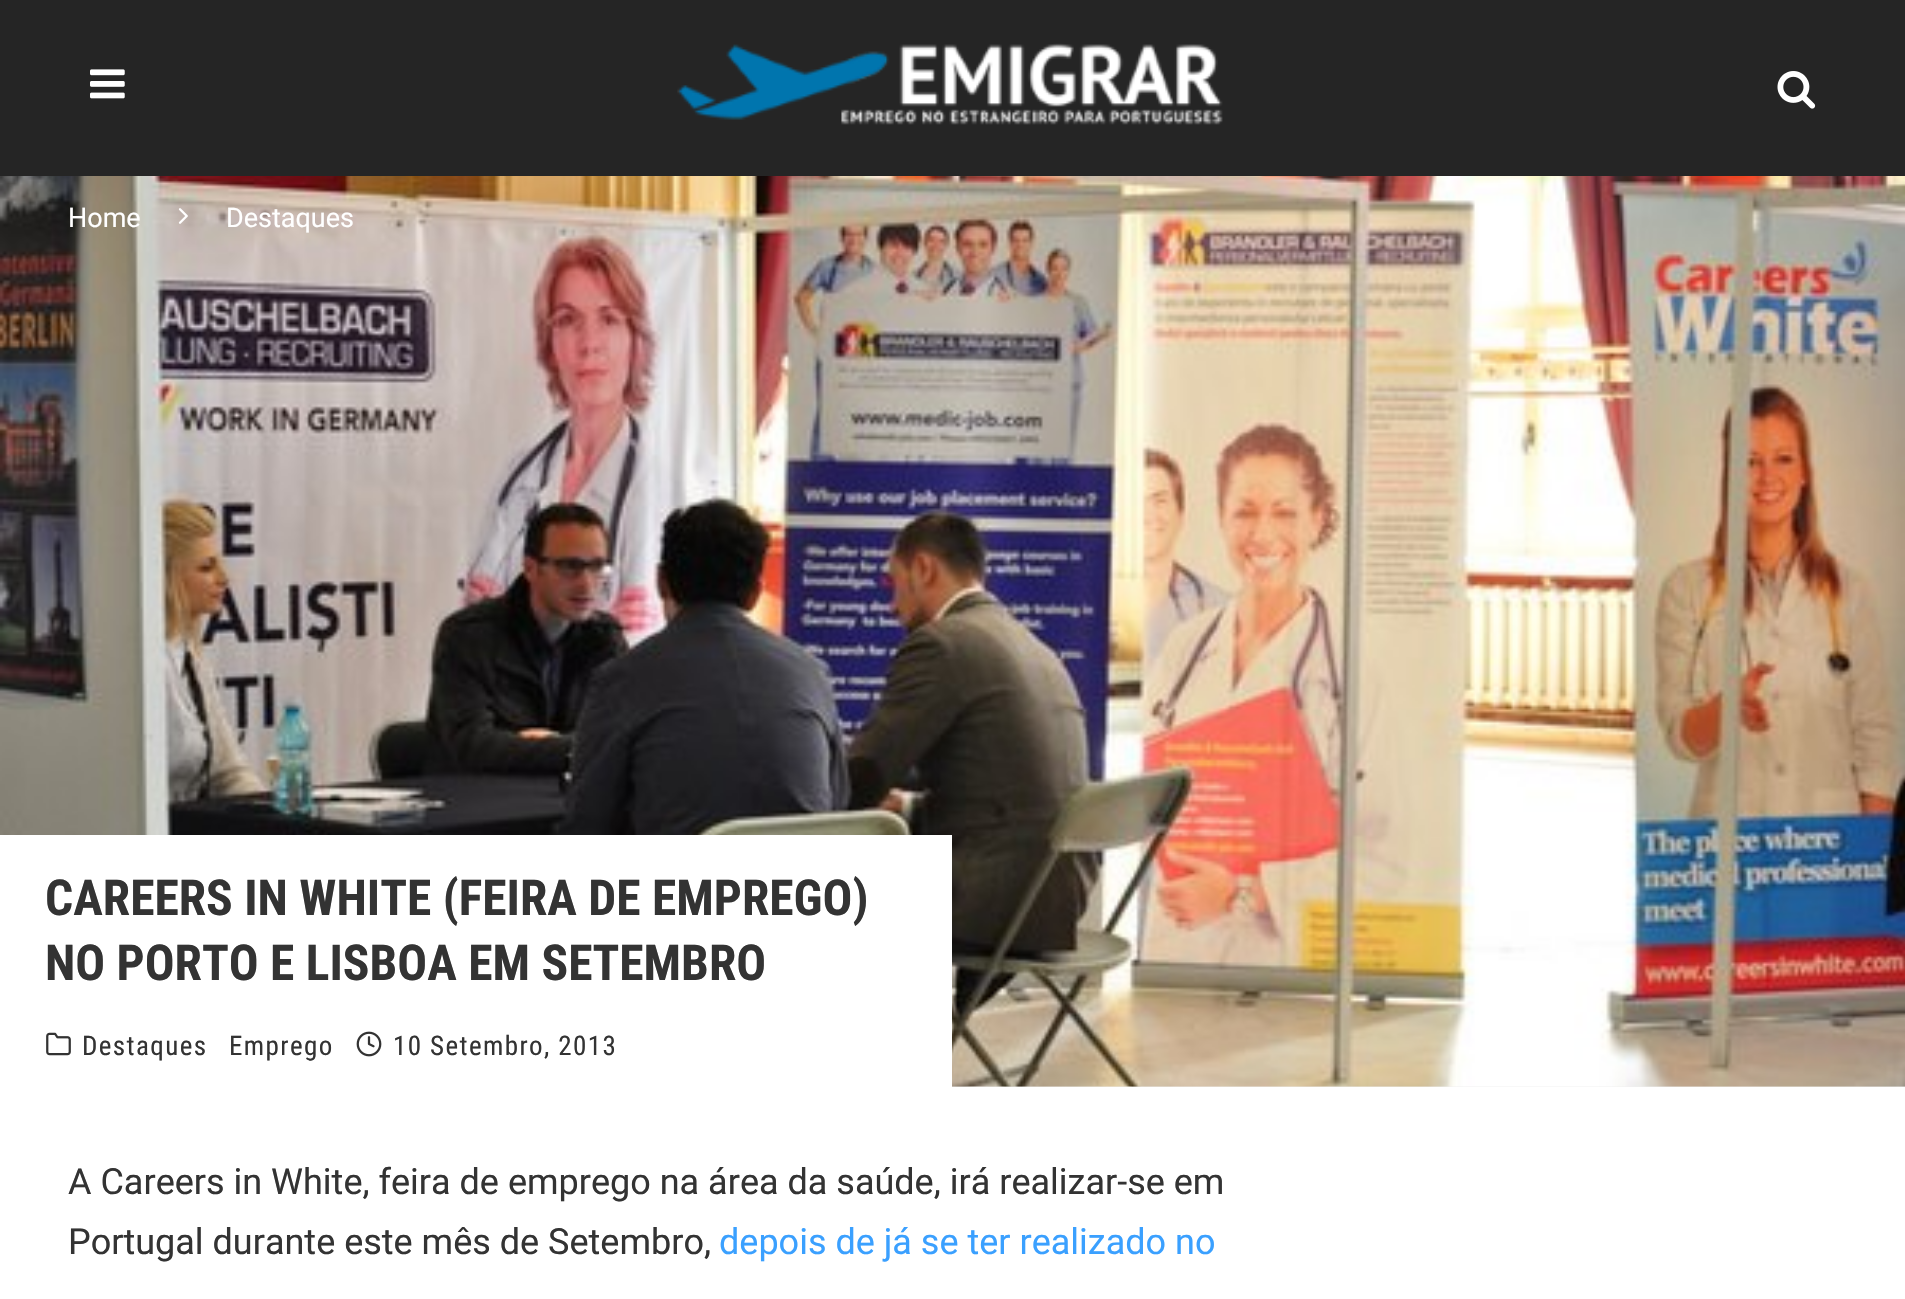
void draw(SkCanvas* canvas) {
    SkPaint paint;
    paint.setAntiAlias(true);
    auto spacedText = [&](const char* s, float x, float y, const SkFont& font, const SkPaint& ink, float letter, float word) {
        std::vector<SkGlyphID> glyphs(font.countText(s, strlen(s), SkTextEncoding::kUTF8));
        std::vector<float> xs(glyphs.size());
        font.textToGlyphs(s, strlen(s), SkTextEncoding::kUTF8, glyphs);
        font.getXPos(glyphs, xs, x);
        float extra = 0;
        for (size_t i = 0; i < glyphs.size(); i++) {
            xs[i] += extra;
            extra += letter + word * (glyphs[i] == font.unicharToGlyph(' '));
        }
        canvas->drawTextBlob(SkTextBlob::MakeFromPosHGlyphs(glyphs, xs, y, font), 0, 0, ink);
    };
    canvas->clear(0xFFFFFFFF);
    paint.setColor(0xFF252525);
    canvas->drawRect(SkRect::MakeXYWH(0, 0, 1905, 176), paint);
    canvas->drawImageRect(SkImages::DeferredFromEncodedData(SkData::MakeFromFileName("img1.png")), SkRect::MakeXYWH(90, 69, 35, 30), SkSamplingOptions());
    canvas->drawImageRect(SkImages::DeferredFromEncodedData(SkData::MakeFromFileName("img2.png")), SkRect::MakeXYWH(677, 43, 546, 82), SkSamplingOptions());
    canvas->drawImageRect(SkImages::DeferredFromEncodedData(SkData::MakeFromFileName("img3.png")), SkRect::MakeXYWH(1777, 71, 39, 38), SkSamplingOptions());
    paint.setColor(0xFFEEEEEE);
    canvas->drawRect(SkRect::MakeXYWH(952, 1086, 953, 1), paint);
    canvas->drawImageRect(SkImages::DeferredFromEncodedData(SkData::MakeFromFileName("img5.png")), SkRect::MakeXYWH(0, 176, 1905, 911), SkSamplingOptions());
    SkFont font1(fontMgr->matchFamilyStyle("Roboto", SkFontStyle::Normal()), 27);
    font1.setSubpixel(true);
    paint.setColor(0xFFFFFFFF);
    canvas->drawString("Home", 68, 227, font1, paint);
    canvas->drawImageRect(SkImages::DeferredFromEncodedData(SkData::MakeFromFileName("img4.png")), SkRect::MakeXYWH(178, 208, 10, 16), SkSamplingOptions());
    canvas->drawString("Destaques", 226, 227, font1, paint);
    canvas->drawRect(SkRect::MakeXYWH(0, 835, 952, 252), paint);
    SkFont font2(fontMgr->matchFamilyStyle("Roboto Condensed", SkFontStyle::Bold()), 49.5f);
    font2.setSubpixel(true);
    paint.setColor(0xFF333333);
    canvas->drawString("CAREERS IN WHITE (FEIRA DE EMPREGO)", 45, 915, font2, paint);
    canvas->drawString("NO PORTO E LISBOA EM SETEMBRO", 45, 980, font2, paint);
    canvas->drawImageRect(SkImages::DeferredFromEncodedData(SkData::MakeFromFileName("img6.png")), SkRect::MakeXYWH(46, 1032, 25, 24), SkSamplingOptions());
    SkFont font3(fontMgr->matchFamilyStyle("Roboto Condensed", SkFontStyle::Normal()), 27);
    font3.setSubpixel(true);
    spacedText("Destaques", 82, 1055, font3, paint, 1.4f, 0);
    spacedText("Emprego", 229, 1055, font3, paint, 1.4f, 0);
    canvas->drawImageRect(SkImages::DeferredFromEncodedData(SkData::MakeFromFileName("img7.png")), SkRect::MakeXYWH(356, 1031, 26, 26), SkSamplingOptions());
    spacedText("10 Setembro, 2013", 393, 1055, font3, paint, 1.4f, 0);
    SkFont font4(fontMgr->matchFamilyStyle("Roboto", SkFontStyle::Normal()), 36);
    font4.setSubpixel(true);
    canvas->drawString("A Careers in White, feira de emprego na área da saúde, irá realizar-se em", 68, 1194, font4, paint);
    canvas->drawString("Portugal durante este mês de Setembro,", 68, 1254, font4, paint);
    paint.setColor(0xFF3AA0FF);
    canvas->drawString("depois de já se ter realizado no", 719, 1254, font4, paint);
}
